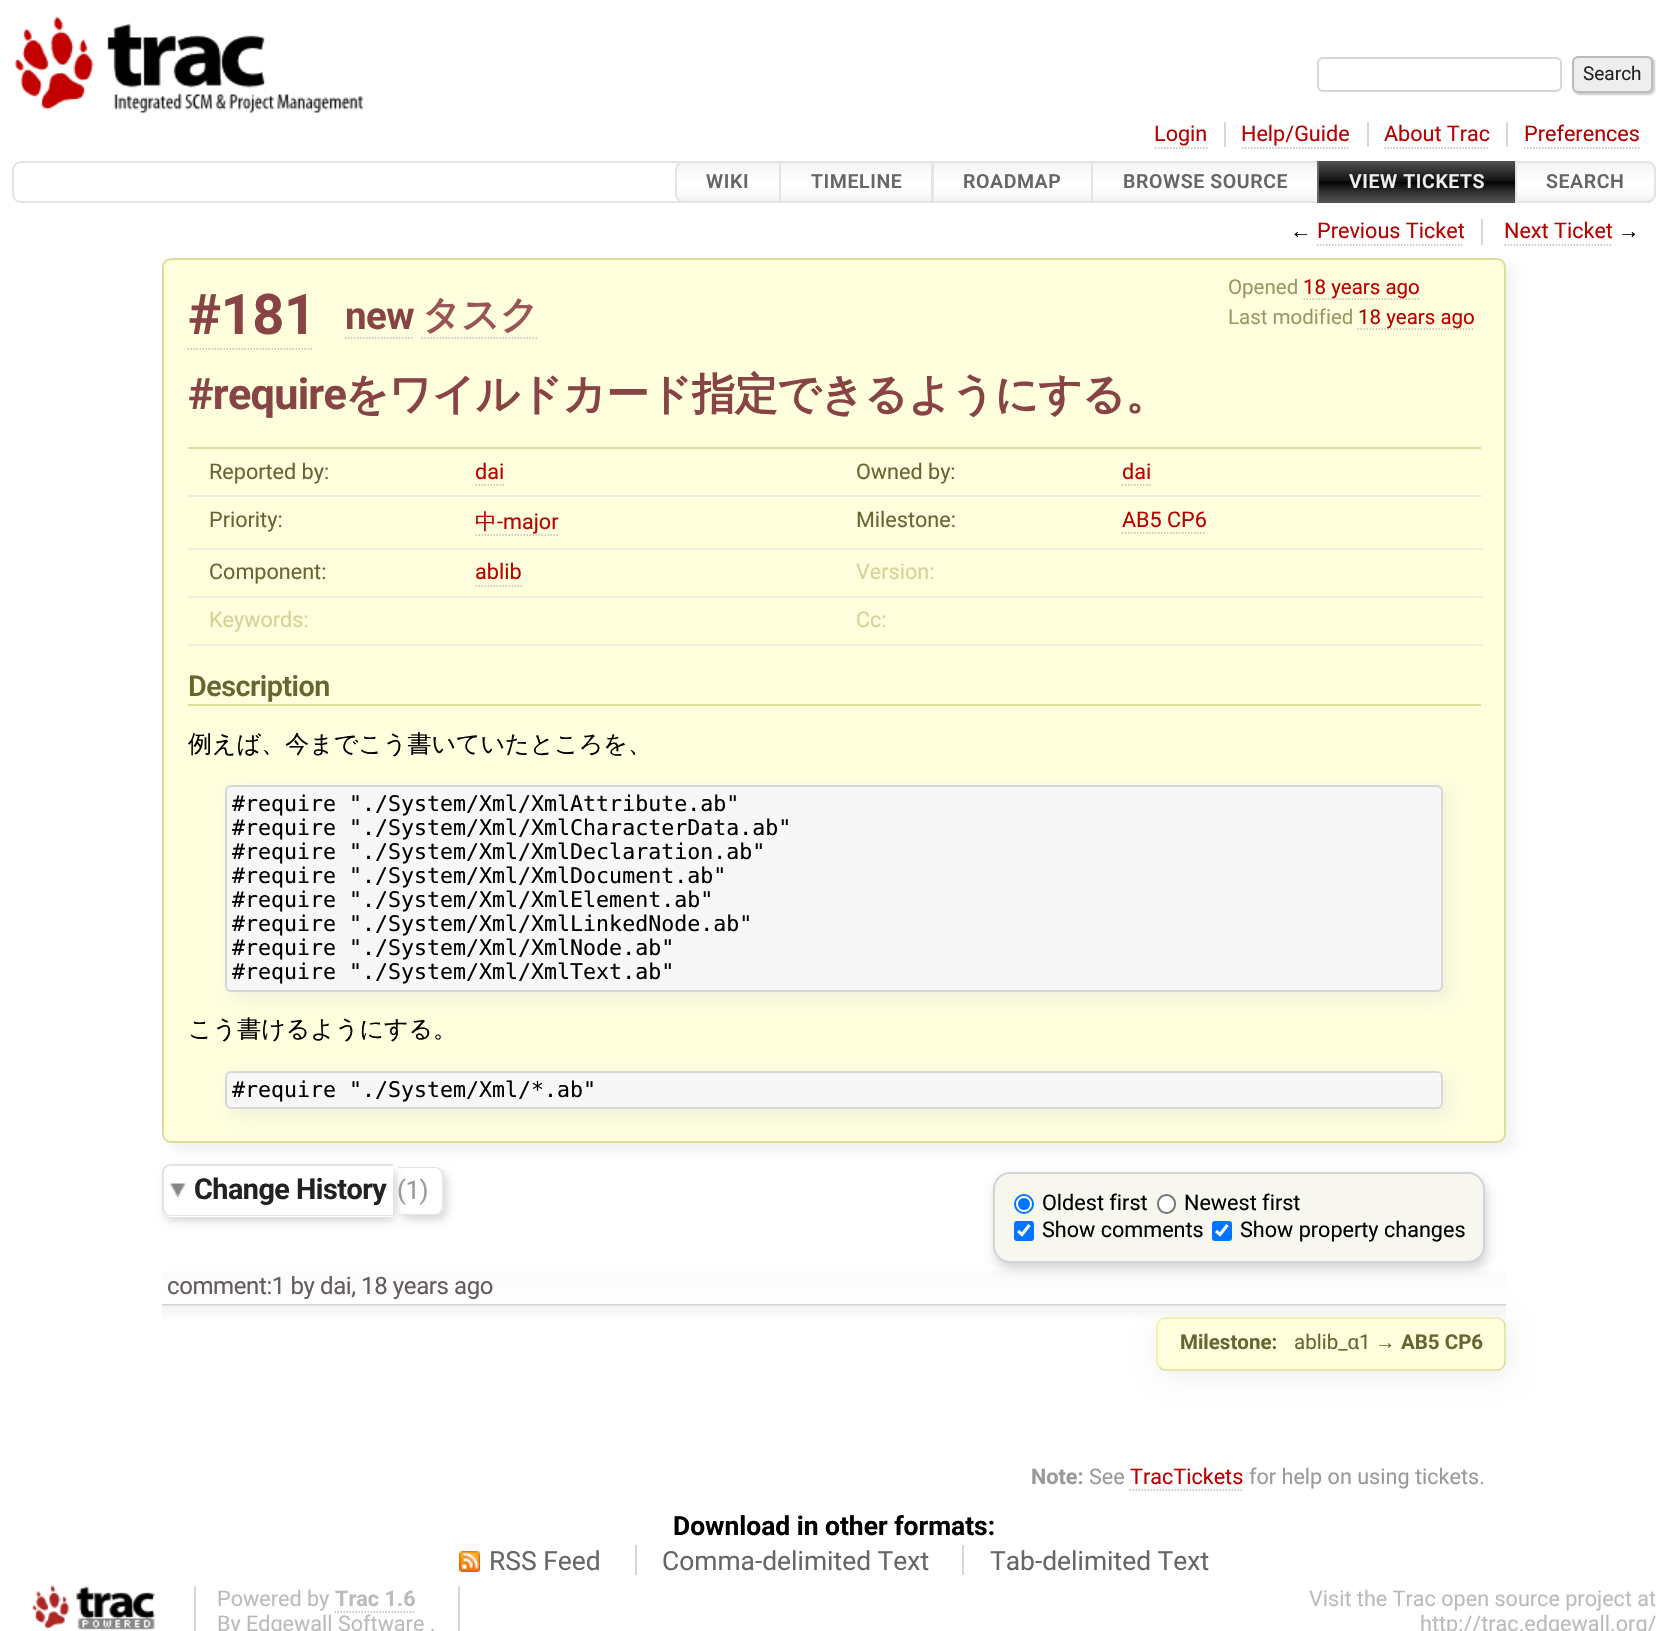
void draw(SkCanvas* canvas) {
    SkPaint paint;
    paint.setAntiAlias(true);
    auto spacedText = [&](const char* s, float x, float y, const SkFont& font, const SkPaint& ink, float letter, float word) {
        std::vector<SkGlyphID> glyphs(font.countText(s, strlen(s), SkTextEncoding::kUTF8));
        std::vector<float> xs(glyphs.size());
        font.textToGlyphs(s, strlen(s), SkTextEncoding::kUTF8, glyphs);
        font.getXPos(glyphs, xs, x);
        float extra = 0;
        for (size_t i = 0; i < glyphs.size(); i++) {
            xs[i] += extra;
            extra += letter + word * (glyphs[i] == font.unicharToGlyph(' '));
        }
        canvas->drawTextBlob(SkTextBlob::MakeFromPosHGlyphs(glyphs, xs, y, font), 0, 0, ink);
    };
    canvas->clear(0xFFFFFFFF);
    canvas->drawImageRect(SkImages::DeferredFromEncodedData(SkData::MakeFromFileName("img1.png")), SkRect::MakeXYWH(14, 16, 350, 97), SkSamplingOptions());
    paint.setStyle(SkPaint::kStroke_Style);
    paint.setStrokeWidth(2);
    paint.setColor(0xFFD7D7D7);
    canvas->drawRoundRect(SkRect::MakeXYWH(1318, 58, 243, 33), 5, 5, paint);
    paint.setStyle(SkPaint::kFill_Style);
    paint.setColor(0xFFCCCCCC);
    paint.setMaskFilter(SkMaskFilter::MakeBlur(kNormal_SkBlurStyle, 1));
    canvas->drawRoundRect(SkRect::MakeXYWH(1574, 57, 81, 38), 6, 6, paint);
    paint.setMaskFilter(nullptr);
    paint.setColor(0xFFEEEEEE);
    canvas->drawRoundRect(SkRect::MakeXYWH(1573, 57, 79, 35), 5, 5, paint);
    paint.setStyle(SkPaint::kStroke_Style);
    paint.setColor(0xFFBBBBBB);
    canvas->drawRoundRect(SkRect::MakeXYWH(1573, 57, 79, 35), 5, 5, paint);
    SkFont font1(fontMgr->matchFamilyStyle("Roboto", SkFontStyle::Normal()), 19);
    font1.setSubpixel(true);
    paint.setStyle(SkPaint::kFill_Style);
    paint.setColor(0xFF222222);
    canvas->drawString("Search", 1583, 80, font1, paint);
    paint.setColor(0xFFD7D7D7);
    canvas->drawRect(SkRect::MakeXYWH(1224, 122, 2, 25), paint);
    SkFont font2(fontMgr->matchFamilyStyle("Roboto", SkFontStyle::Normal()), 21.6f);
    font2.setSubpixel(true);
    paint.setColor(0xFFBB0000);
    canvas->drawString("Login", 1154, 141, font2, paint);
    paint.setStyle(SkPaint::kStroke_Style);
    paint.setStrokeWidth(1.5f);
    paint.setColor(0xFFBBBBBB);
    paint.setPathEffect(SkDashPathEffect::Make({{1.5f, 1.5f}}, 0));
    canvas->drawPath(SkPathBuilder().moveTo(1155, 148).lineTo(1207.5f, 148).detach(), paint);
    paint.setPathEffect(nullptr);
    paint.setStyle(SkPaint::kFill_Style);
    paint.setColor(0xFFD7D7D7);
    canvas->drawRect(SkRect::MakeXYWH(1367, 122, 2, 25), paint);
    paint.setColor(0xFFBB0000);
    canvas->drawString("Help/Guide", 1241, 141, font2, paint);
    paint.setStyle(SkPaint::kStroke_Style);
    paint.setColor(0xFFBBBBBB);
    paint.setPathEffect(SkDashPathEffect::Make({{1.5f, 1.5f}}, 0));
    canvas->drawPath(SkPathBuilder().moveTo(1242, 148).lineTo(1350, 148).detach(), paint);
    paint.setPathEffect(nullptr);
    paint.setStyle(SkPaint::kFill_Style);
    paint.setColor(0xFFD7D7D7);
    canvas->drawRect(SkRect::MakeXYWH(1506, 122, 2, 25), paint);
    paint.setColor(0xFFBB0000);
    canvas->drawString("About Trac", 1384, 141, font2, paint);
    paint.setStyle(SkPaint::kStroke_Style);
    paint.setColor(0xFFBBBBBB);
    paint.setPathEffect(SkDashPathEffect::Make({{1.5f, 1.5f}}, 0));
    canvas->drawPath(SkPathBuilder().moveTo(1384.5f, 148).lineTo(1489.5f, 148).detach(), paint);
    paint.setPathEffect(nullptr);
    paint.setStyle(SkPaint::kFill_Style);
    paint.setColor(0xFFBB0000);
    canvas->drawString("Preferences", 1524, 141, font2, paint);
    paint.setStyle(SkPaint::kStroke_Style);
    paint.setColor(0xFFBBBBBB);
    paint.setPathEffect(SkDashPathEffect::Make({{1.5f, 1.5f}}, 0));
    canvas->drawPath(SkPathBuilder().moveTo(1524, 148).lineTo(1639.5f, 148).detach(), paint);
    paint.setPathEffect(nullptr);
    paint.setStrokeWidth(2);
    paint.setColor(0xFFE4E4E4);
    canvas->drawRoundRect(SkRect::MakeXYWH(13, 162, 1642, 40), 8, 8, paint);
    canvas->save();
    canvas->clipPath(SkPathBuilder().moveTo(684, 161).lineTo(782, 161).lineTo(782, 203).lineTo(684, 203).cubicTo(679, 203, 675, 199, 675, 194).lineTo(675, 170).cubicTo(675, 165, 679, 161, 684, 161).close().detach(), true);
    paint.setStyle(SkPaint::kFill_Style);
    {
        const SkColor colors[] = {0xFFF2F2F2, 0xFFFAFAFA, 0xFFFEFEFE, 0xFFFFFFFF, 0xFFFAFAFA, 0xFFF2F2F2};
        const float stops[] = {0, 0.25f, 0.49f, 0.51f, 0.85f, 1};
        const SkPoint ends[] = {{728, 162}, {728, 201}};
        paint.setShader(SkGradientShader::MakeLinear(ends, colors, stops, 6, SkTileMode::kClamp));
        paint.setAlpha(255);
    }
    canvas->drawRect(SkRect::MakeXYWH(675, 162, 104, 39), paint);
    canvas->restore();
    paint.setStyle(SkPaint::kStroke_Style);
    paint.setShader(nullptr);
    paint.setColor(0xFFE4E4E4);
    canvas->drawPath(SkPathBuilder().moveTo(684, 162).lineTo(781, 162).lineTo(781, 202).lineTo(684, 202).cubicTo(679.5f, 202, 676, 198.5f, 676, 194).lineTo(676, 170).cubicTo(676, 165.5f, 679.5f, 162, 684, 162).close().detach(), paint);
    SkFont font3(fontMgr->matchFamilyStyle("Roboto", SkFontStyle(600, SkFontStyle::kNormal_Width, SkFontStyle::kUpright_Slant)), 19.5f);
    font3.setSubpixel(true);
    paint.setStyle(SkPaint::kFill_Style);
    paint.setColor(0xFF666666);
    spacedText("WIKI", 706, 188, font3, paint, 0.6f, 0);
    {
        const SkColor colors[] = {0xFFF2F2F2, 0xFFFAFAFA, 0xFFFEFEFE, 0xFFFFFFFF, 0xFFFAFAFA, 0xFFF2F2F2};
        const float stops[] = {0, 0.25f, 0.49f, 0.51f, 0.85f, 1};
        const SkPoint ends[] = {{856, 162}, {856, 201}};
        paint.setShader(SkGradientShader::MakeLinear(ends, colors, stops, 6, SkTileMode::kClamp));
        paint.setAlpha(255);
    }
    canvas->drawRect(SkRect::MakeXYWH(781, 163, 150, 38), paint);
    paint.setStyle(SkPaint::kStroke_Style);
    paint.setShader(nullptr);
    paint.setColor(0xFFE4E4E4);
    canvas->drawRect(SkRect::MakeXYWH(780, 162, 152, 40), paint);
    paint.setStyle(SkPaint::kFill_Style);
    paint.setColor(0xFF666666);
    spacedText("TIMELINE", 811, 188, font3, paint, 0.6f, 0);
    {
        const SkColor colors[] = {0xFFF2F2F2, 0xFFFAFAFA, 0xFFFEFEFE, 0xFFFFFFFF, 0xFFFAFAFA, 0xFFF2F2F2};
        const float stops[] = {0, 0.25f, 0.49f, 0.51f, 0.85f, 1};
        const SkPoint ends[] = {{1013, 162}, {1013, 201}};
        paint.setShader(SkGradientShader::MakeLinear(ends, colors, stops, 6, SkTileMode::kClamp));
        paint.setAlpha(255);
    }
    canvas->drawRect(SkRect::MakeXYWH(934, 163, 157, 38), paint);
    paint.setStyle(SkPaint::kStroke_Style);
    paint.setShader(nullptr);
    paint.setColor(0xFFE4E4E4);
    canvas->drawRect(SkRect::MakeXYWH(933, 162, 160, 40), paint);
    paint.setStyle(SkPaint::kFill_Style);
    paint.setColor(0xFF666666);
    spacedText("ROADMAP", 963, 188, font3, paint, 0.6f, 0);
    {
        const SkColor colors[] = {0xFFF2F2F2, 0xFFFAFAFA, 0xFFFEFEFE, 0xFFFFFFFF, 0xFFFAFAFA, 0xFFF2F2F2};
        const float stops[] = {0, 0.25f, 0.49f, 0.51f, 0.85f, 1};
        const SkPoint ends[] = {{1205, 162}, {1205, 201}};
        paint.setShader(SkGradientShader::MakeLinear(ends, colors, stops, 6, SkTileMode::kClamp));
        paint.setAlpha(255);
    }
    canvas->drawRect(SkRect::MakeXYWH(1093, 163, 224, 38), paint);
    paint.setStyle(SkPaint::kStroke_Style);
    paint.setShader(nullptr);
    paint.setColor(0xFFE4E4E4);
    canvas->drawRect(SkRect::MakeXYWH(1092, 162, 227, 40), paint);
    paint.setStyle(SkPaint::kFill_Style);
    paint.setColor(0xFF666666);
    spacedText("BROWSE SOURCE", 1123, 188, font3, paint, 0.6f, 0);
    paint.setStyle(SkPaint::kStroke_Style);
    canvas->drawRect(SkRect::MakeXYWH(1318, 162, 198, 40), paint);
    paint.setStyle(SkPaint::kFill_Style);
    {
        const SkColor colors[] = {0xFF555555, 0xFF333333, 0xFF111111, 0xFF000000, 0xFF333333, 0xFF555555};
        const float stops[] = {0, 0.25f, 0.49f, 0.51f, 0.75f, 1};
        const SkPoint ends[] = {{1417, 160}, {1417, 203}};
        paint.setShader(SkGradientShader::MakeLinear(ends, colors, stops, 6, SkTileMode::kClamp));
        paint.setAlpha(255);
    }
    canvas->drawRect(SkRect::MakeXYWH(1319, 161, 196, 42), paint);
    paint.setShader(nullptr);
    paint.setColor(0xFFEEEEEE);
    spacedText("VIEW TICKETS", 1349, 188, font3, paint, 0.6f, 0);
    canvas->save();
    canvas->clipPath(SkPathBuilder().moveTo(1515, 161).lineTo(1647, 161).cubicTo(1652, 161, 1656, 165, 1656, 170).lineTo(1656, 194).cubicTo(1656, 199, 1652, 203, 1647, 203).lineTo(1515, 203).close().detach(), true);
    {
        const SkColor colors[] = {0xFFF2F2F2, 0xFFFAFAFA, 0xFFFEFEFE, 0xFFFFFFFF, 0xFFFAFAFA, 0xFFF2F2F2};
        const float stops[] = {0, 0.25f, 0.49f, 0.51f, 0.85f, 1};
        const SkPoint ends[] = {{1586, 162}, {1586, 201}};
        paint.setShader(SkGradientShader::MakeLinear(ends, colors, stops, 6, SkTileMode::kClamp));
        paint.setAlpha(255);
    }
    canvas->drawRect(SkRect::MakeXYWH(1517, 162, 139, 39), paint);
    canvas->restore();
    paint.setStyle(SkPaint::kStroke_Style);
    paint.setShader(nullptr);
    paint.setColor(0xFFE4E4E4);
    canvas->drawPath(SkPathBuilder().moveTo(1516, 162).lineTo(1647, 162).cubicTo(1651.5f, 162, 1655, 165.5f, 1655, 170).lineTo(1655, 194).cubicTo(1655, 198.5f, 1651.5f, 202, 1647, 202).lineTo(1516, 202).close().detach(), paint);
    paint.setStyle(SkPaint::kFill_Style);
    paint.setColor(0xFF666666);
    spacedText("SEARCH", 1546, 188, font3, paint, 0.6f, 0);
    paint.setColor(0xFFD7D7D7);
    canvas->drawRect(SkRect::MakeXYWH(1481, 219, 2, 26), paint);
    SkFont font4(fontMgr->matchFamilyStyle("Liberation Sans", SkFontStyle::Normal()), 21.6f);
    font4.setSubpixel(true);
    paint.setColor(0xFF000000);
    canvas->drawString("←", 1290, 238, font4, paint);
    paint.setColor(0xFFBB0000);
    canvas->drawString("Previous Ticket", 1317, 238, font2, paint);
    paint.setStyle(SkPaint::kStroke_Style);
    paint.setStrokeWidth(1.5f);
    paint.setColor(0xFFBBBBBB);
    paint.setPathEffect(SkDashPathEffect::Make({{1.5f, 1.5f}}, 0));
    canvas->drawPath(SkPathBuilder().moveTo(1317, 245).lineTo(1464, 245).detach(), paint);
    paint.setPathEffect(nullptr);
    paint.setStyle(SkPaint::kFill_Style);
    paint.setColor(0xFFBB0000);
    canvas->drawString("Next Ticket", 1504, 238, font2, paint);
    paint.setStyle(SkPaint::kStroke_Style);
    paint.setColor(0xFFBBBBBB);
    paint.setPathEffect(SkDashPathEffect::Make({{1.5f, 1.5f}}, 0));
    canvas->drawPath(SkPathBuilder().moveTo(1504.5f, 245).lineTo(1612.5f, 245).detach(), paint);
    paint.setPathEffect(nullptr);
    paint.setStyle(SkPaint::kFill_Style);
    paint.setColor(0xFF000000);
    canvas->drawString("→", 1618, 238, font4, paint);
    canvas->save();
    canvas->clipPath(SkPathBuilder(SkPathFillType::kEvenOdd).moveTo(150, 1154).lineTo(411, 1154).lineTo(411, 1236).lineTo(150, 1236).close().moveTo(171, 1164).lineTo(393, 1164).lineTo(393, 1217).lineTo(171, 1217).cubicTo(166, 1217, 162, 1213, 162, 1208).lineTo(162, 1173).cubicTo(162, 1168, 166, 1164, 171, 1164).close().detach(), true);
    paint.setColor(0xFFD7D7D7);
    paint.setMaskFilter(SkMaskFilter::MakeBlur(kNormal_SkBlurStyle, 4.5f));
    canvas->drawRoundRect(SkRect::MakeXYWH(165, 1169, 231, 52), 9, 9, paint);
    paint.setMaskFilter(nullptr);
    canvas->restore();
    canvas->drawImageRect(SkImages::DeferredFromEncodedData(SkData::MakeFromFileName("img2.png")), SkRect::MakeXYWH(169, 1183, 17, 15), SkSamplingOptions());
    paint.setColor(0xFFE4E4E4);
    canvas->drawPath(SkPathBuilder(SkPathFillType::kEvenOdd).moveTo(171, 1164).lineTo(393, 1164).lineTo(393, 1216).lineTo(171, 1216).cubicTo(166, 1216, 162, 1213, 162, 1208).lineTo(162, 1173).cubicTo(162, 1168, 166, 1164, 171, 1164).close().moveTo(171, 1166).lineTo(393, 1166).lineTo(393, 1215).lineTo(171, 1215).cubicTo(167, 1215, 164, 1212, 164, 1208).lineTo(164, 1173).cubicTo(164, 1169, 167, 1166, 171, 1166).close().detach(), paint);
    paint.setColor(0xFFF2F2F2);
    paint.setMaskFilter(SkMaskFilter::MakeBlur(kNormal_SkBlurStyle, 5));
    canvas->drawRoundRect(SkRect::MakeXYWH(170, 266, 1344, 885), 9, 9, paint);
    paint.setMaskFilter(nullptr);
    paint.setColor(0xFFFFFFDD);
    canvas->drawRoundRect(SkRect::MakeXYWH(163, 259, 1342, 883), 8, 8, paint);
    paint.setStyle(SkPaint::kStroke_Style);
    paint.setStrokeWidth(2);
    paint.setColor(0xFFDDDD99);
    canvas->drawRoundRect(SkRect::MakeXYWH(163, 259, 1342, 883), 8, 8, paint);
    SkFont font5(fontMgr->matchFamilyStyle("Roboto", SkFontStyle::Bold()), 56);
    font5.setSubpixel(true);
    paint.setStyle(SkPaint::kFill_Style);
    paint.setColor(0xFF884444);
    spacedText("#181", 188, 334, font5, paint, -0.5f, 0);
    paint.setStyle(SkPaint::kStroke_Style);
    paint.setStrokeWidth(1.5f);
    paint.setColor(0xFFBBBBBB);
    paint.setPathEffect(SkDashPathEffect::Make({{1.5f, 1.5f}}, 0));
    canvas->drawPath(SkPathBuilder().moveTo(187.5f, 349).lineTo(313.5f, 349).detach(), paint);
    paint.setPathEffect(nullptr);
    SkFont font6(fontMgr->matchFamilyStyle("Roboto", SkFontStyle::Bold()), 38.5f);
    font6.setSubpixel(true);
    paint.setStyle(SkPaint::kFill_Style);
    paint.setColor(0xFF884444);
    spacedText("new", 345, 329, font6, paint, -0.5f, 0);
    paint.setStyle(SkPaint::kStroke_Style);
    paint.setColor(0xFFBBBBBB);
    paint.setPathEffect(SkDashPathEffect::Make({{1.5f, 1.5f}}, 0));
    canvas->drawPath(SkPathBuilder().moveTo(345, 338).lineTo(412.5f, 338).detach(), paint);
    paint.setPathEffect(nullptr);
    SkFont font7(fontMgr->matchFamilyStyle("WenQuanYi Zen Hei", SkFontStyle::Bold()), 38.5f);
    font7.setSubpixel(true);
    paint.setStyle(SkPaint::kFill_Style);
    paint.setColor(0xFF995555);
    spacedText("タスク", 422, 328, font7, paint, -0.5f, 0);
    paint.setStyle(SkPaint::kStroke_Style);
    paint.setColor(0xFFBBBBBB);
    paint.setPathEffect(SkDashPathEffect::Make({{1.5f, 1.5f}}, 0));
    canvas->drawPath(SkPathBuilder().moveTo(421.5f, 338).lineTo(537, 338).detach(), paint);
    paint.setPathEffect(nullptr);
    SkFont font8(fontMgr->matchFamilyStyle("Roboto", SkFontStyle::Normal()), 20.5f);
    font8.setSubpixel(true);
    paint.setStyle(SkPaint::kFill_Style);
    paint.setColor(0xFF999966);
    canvas->drawString("Opened", 1228, 294, font8, paint);
    paint.setStyle(SkPaint::kStroke_Style);
    paint.setColor(0xFFBBBBBB);
    paint.setPathEffect(SkDashPathEffect::Make({{1.5f, 1.5f}}, 0));
    canvas->drawPath(SkPathBuilder().moveTo(1303.5f, 299).lineTo(1419, 299).detach(), paint);
    paint.setPathEffect(nullptr);
    paint.setStyle(SkPaint::kFill_Style);
    paint.setColor(0xFFBB0000);
    canvas->drawString("18 years ago", 1303, 294, font8, paint);
    paint.setColor(0xFF999966);
    canvas->drawString("Last modified", 1228, 324, font8, paint);
    paint.setStyle(SkPaint::kStroke_Style);
    paint.setColor(0xFFBBBBBB);
    paint.setPathEffect(SkDashPathEffect::Make({{1.5f, 1.5f}}, 0));
    canvas->drawPath(SkPathBuilder().moveTo(1357.5f, 329).lineTo(1474.5f, 329).detach(), paint);
    paint.setPathEffect(nullptr);
    paint.setStyle(SkPaint::kFill_Style);
    paint.setColor(0xFFBB0000);
    canvas->drawString("18 years ago", 1358, 324, font8, paint);
    SkFont font9(fontMgr->matchFamilyStyle("Roboto", SkFontStyle::Bold()), 43.25f);
    font9.setSubpixel(true);
    paint.setColor(0xFF884444);
    spacedText("#require", 188, 409, font9, paint, -0.75f, 0);
    SkFont font10(fontMgr->matchFamilyStyle("WenQuanYi Zen Hei", SkFontStyle::Bold()), 43.25f);
    font10.setSubpixel(true);
    spacedText("をワイルドカード指定できるようにする。", 345, 409, font10, paint, -0.75f, 0);
    paint.setColor(0xFFDDDD99);
    canvas->drawRect(SkRect::MakeXYWH(188, 447, 1293, 2), paint);
    paint.setColor(0xFFEEEEDD);
    canvas->drawRect(SkRect::MakeXYWH(188, 495, 1294, 2), paint);
    paint.setColor(0xFF666633);
    canvas->drawString("Reported by:", 209, 479, font2, paint);
    paint.setColor(0xFFBB0000);
    canvas->drawString("dai", 475, 479, font2, paint);
    paint.setStyle(SkPaint::kStroke_Style);
    paint.setColor(0xFFBBBBBB);
    paint.setPathEffect(SkDashPathEffect::Make({{1.5f, 1.5f}}, 0));
    canvas->drawPath(SkPathBuilder().moveTo(475.5f, 485).lineTo(504, 485).detach(), paint);
    paint.setPathEffect(nullptr);
    paint.setStyle(SkPaint::kFill_Style);
    paint.setColor(0xFF666633);
    canvas->drawString("Owned by:", 856, 479, font2, paint);
    paint.setColor(0xFFBB0000);
    canvas->drawString("dai", 1122, 479, font2, paint);
    paint.setStyle(SkPaint::kStroke_Style);
    paint.setColor(0xFFBBBBBB);
    paint.setPathEffect(SkDashPathEffect::Make({{1.5f, 1.5f}}, 0));
    canvas->drawPath(SkPathBuilder().moveTo(1122, 485).lineTo(1150.5f, 485).detach(), paint);
    paint.setPathEffect(nullptr);
    paint.setStyle(SkPaint::kFill_Style);
    paint.setColor(0xFFEEEEDD);
    canvas->drawRect(SkRect::MakeXYWH(188, 548, 1294, 2), paint);
    paint.setColor(0xFF666633);
    canvas->drawString("Priority:", 209, 527, font2, paint);
    SkFont font11(fontMgr->matchFamilyStyle("WenQuanYi Zen Hei", SkFontStyle(500, SkFontStyle::kNormal_Width, SkFontStyle::kUpright_Slant)), 21.6f);
    font11.setSubpixel(true);
    paint.setColor(0xFFBB0000);
    canvas->drawString("中", 475, 529, font11, paint);
    canvas->drawString("-major", 497, 529, font2, paint);
    paint.setStyle(SkPaint::kStroke_Style);
    paint.setColor(0xFFBBBBBB);
    paint.setPathEffect(SkDashPathEffect::Make({{1.5f, 1.5f}}, 0));
    canvas->drawPath(SkPathBuilder().moveTo(475.5f, 535).lineTo(558, 535).detach(), paint);
    paint.setPathEffect(nullptr);
    paint.setStyle(SkPaint::kFill_Style);
    paint.setColor(0xFF666633);
    canvas->drawString("Milestone:", 856, 527, font2, paint);
    paint.setColor(0xFFBB0000);
    canvas->drawString("AB5 CP6", 1122, 527, font2, paint);
    paint.setStyle(SkPaint::kStroke_Style);
    paint.setColor(0xFFBBBBBB);
    paint.setPathEffect(SkDashPathEffect::Make({{1.5f, 1.5f}}, 0));
    canvas->drawPath(SkPathBuilder().moveTo(1122, 533).lineTo(1206, 533).detach(), paint);
    paint.setPathEffect(nullptr);
    paint.setStyle(SkPaint::kFill_Style);
    paint.setColor(0xFFEEEEDD);
    canvas->drawRect(SkRect::MakeXYWH(188, 596, 1294, 2), paint);
    paint.setColor(0xFF666633);
    canvas->drawString("Component:", 209, 579, font2, paint);
    paint.setColor(0xFFBB0000);
    canvas->drawString("ablib", 475, 579, font2, paint);
    paint.setStyle(SkPaint::kStroke_Style);
    paint.setColor(0xFFBBBBBB);
    paint.setPathEffect(SkDashPathEffect::Make({{1.5f, 1.5f}}, 0));
    canvas->drawPath(SkPathBuilder().moveTo(475.5f, 586).lineTo(522, 586).detach(), paint);
    paint.setPathEffect(nullptr);
    paint.setStyle(SkPaint::kFill_Style);
    paint.setColor(0xFFD3D398);
    canvas->drawString("Version:", 856, 579, font2, paint);
    paint.setColor(0xFFEEEEDD);
    canvas->drawRect(SkRect::MakeXYWH(188, 644, 1294, 2), paint);
    paint.setColor(0xFFD3D398);
    canvas->drawString("Keywords:", 209, 627, font2, paint);
    canvas->drawString("Cc:", 856, 627, font2, paint);
    paint.setColor(0xFFDDDD99);
    canvas->drawRect(SkRect::MakeXYWH(188, 704, 1293, 2), paint);
    SkFont font12(fontMgr->matchFamilyStyle("Roboto", SkFontStyle(600, SkFontStyle::kNormal_Width, SkFontStyle::kUpright_Slant)), 28.75f);
    font12.setSubpixel(true);
    paint.setColor(0xFF666633);
    spacedText("Description", 188, 696, font12, paint, -0.5f, 0);
    SkFont font13(fontMgr->matchFamilyStyle("WenQuanYi Zen Hei", SkFontStyle(500, SkFontStyle::kNormal_Width, SkFontStyle::kUpright_Slant)), 24);
    font13.setSubpixel(true);
    paint.setColor(0xFF000000);
    canvas->drawString("例えば、今までこう書いていたところを、", 188, 752, font13, paint);
    paint.setColor(0x4DD2D7DC);
    paint.setMaskFilter(SkMaskFilter::MakeBlur(kNormal_SkBlurStyle, 8));
    canvas->drawRoundRect(SkRect::MakeXYWH(230, 789, 1222, 212), 9, 9, paint);
    paint.setMaskFilter(nullptr);
    paint.setColor(0xFFF7F7F7);
    canvas->drawRoundRect(SkRect::MakeXYWH(226, 786, 1216, 205), 5, 5, paint);
    paint.setStyle(SkPaint::kStroke_Style);
    paint.setStrokeWidth(2);
    paint.setColor(0xFFD7D7D7);
    canvas->drawRoundRect(SkRect::MakeXYWH(226, 786, 1216, 205), 5, 5, paint);
    SkFont font14(fontMgr->matchFamilyStyle("DejaVu Sans Mono", SkFontStyle::Normal()), 21.6f);
    font14.setSubpixel(true);
    paint.setStyle(SkPaint::kFill_Style);
    paint.setColor(0xFF000000);
    canvas->drawString("#require \"./System/Xml/XmlAttribute.ab\"", 232, 811, font14, paint);
    canvas->drawString("#require \"./System/Xml/XmlCharacterData.ab\"", 232, 835, font14, paint);
    canvas->drawString("#require \"./System/Xml/XmlDeclaration.ab\"", 232, 859, font14, paint);
    canvas->drawString("#require \"./System/Xml/XmlDocument.ab\"", 232, 883, font14, paint);
    canvas->drawString("#require \"./System/Xml/XmlElement.ab\"", 232, 907, font14, paint);
    canvas->drawString("#require \"./System/Xml/XmlLinkedNode.ab\"", 232, 931, font14, paint);
    canvas->drawString("#require \"./System/Xml/XmlNode.ab\"", 232, 955, font14, paint);
    canvas->drawString("#require \"./System/Xml/XmlText.ab\"", 232, 979, font14, paint);
    canvas->drawString("こう書けるようにする。", 188, 1037, font13, paint);
    paint.setColor(0x4DD2D7DC);
    paint.setMaskFilter(SkMaskFilter::MakeBlur(kNormal_SkBlurStyle, 8));
    canvas->drawRoundRect(SkRect::MakeXYWH(230, 1076, 1222, 42), 9, 9, paint);
    paint.setMaskFilter(nullptr);
    paint.setColor(0xFFF7F7F7);
    canvas->drawRoundRect(SkRect::MakeXYWH(226, 1072, 1216, 36), 5, 5, paint);
    paint.setStyle(SkPaint::kStroke_Style);
    paint.setColor(0xFFD7D7D7);
    canvas->drawRoundRect(SkRect::MakeXYWH(226, 1072, 1216, 36), 5, 5, paint);
    paint.setStyle(SkPaint::kFill_Style);
    paint.setColor(0xFF000000);
    canvas->drawString("#require \"./System/Xml/*.ab\"", 232, 1097, font14, paint);
    canvas->save();
    canvas->clipPath(SkPathBuilder(SkPathFillType::kEvenOdd).moveTo(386, 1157).lineTo(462, 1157).lineTo(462, 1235).lineTo(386, 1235).close().moveTo(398, 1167).lineTo(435, 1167).cubicTo(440, 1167, 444, 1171, 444, 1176).lineTo(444, 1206).cubicTo(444, 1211, 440, 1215, 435, 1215).lineTo(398, 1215).close().detach(), true);
    paint.setColor(0xFFD7D7D7);
    paint.setMaskFilter(SkMaskFilter::MakeBlur(kNormal_SkBlurStyle, 4.5f));
    canvas->drawRoundRect(SkRect::MakeXYWH(401, 1172, 46, 48), 9, 9, paint);
    paint.setMaskFilter(nullptr);
    canvas->restore();
    SkFont font15(fontMgr->matchFamilyStyle("Roboto", SkFontStyle::Bold()), 28.75f);
    font15.setSubpixel(true);
    paint.setColor(0xFF222222);
    spacedText("Change History", 194, 1199, font15, paint, -0.5f, 0);
    paint.setColor(0xFFE4E4E4);
    canvas->drawPath(SkPathBuilder(SkPathFillType::kEvenOdd).moveTo(398, 1167).lineTo(435, 1167).cubicTo(440, 1167, 444, 1171, 444, 1176).lineTo(444, 1206).cubicTo(444, 1211, 440, 1215, 435, 1215).lineTo(398, 1215).close().moveTo(398, 1168).lineTo(435, 1168).cubicTo(439, 1168, 442, 1172, 442, 1176).lineTo(442, 1206).cubicTo(442, 1210, 439, 1214, 435, 1214).lineTo(398, 1214).close().detach(), paint);
    SkFont font16(fontMgr->matchFamilyStyle("Roboto", SkFontStyle::Normal()), 26);
    font16.setSubpixel(true);
    paint.setColor(0xFF999999);
    spacedText("(1)", 397, 1199, font16, paint, -0.5f, 0);
    {
        const SkColor colors[] = {0xFFFFFFFF, 0xFFFBFBFB, 0xFFF3F3F3, 0xFFC7C5C5, 0xFFFFFFFF, 0xFFFBFBFB};
        const float stops[] = {0, 0.14f, 0.32f, 0.37f, 0.37f, 1};
        const SkPoint ends[] = {{834, 1323}, {834, 1271}};
        paint.setShader(SkGradientShader::MakeLinear(ends, colors, stops, 6, SkTileMode::kClamp));
        paint.setAlpha(255);
    }
    canvas->drawRect(SkRect::MakeXYWH(162, 1271, 1344, 47), paint);
    paint.setShader(nullptr);
    paint.setColor(0xFFD4D4D4);
    paint.setMaskFilter(SkMaskFilter::MakeBlur(kNormal_SkBlurStyle, 5.5f));
    canvas->drawRoundRect(SkRect::MakeXYWH(995, 1178, 492, 91), 17, 17, paint);
    paint.setMaskFilter(nullptr);
    paint.setColor(0xFFF7F7F0);
    canvas->drawRoundRect(SkRect::MakeXYWH(994, 1173, 490, 89), 16, 16, paint);
    paint.setStyle(SkPaint::kStroke_Style);
    paint.setColor(0xFFD4D4D4);
    canvas->drawRoundRect(SkRect::MakeXYWH(994, 1173, 490, 89), 16, 16, paint);
    paint.setStyle(SkPaint::kFill_Style);
    paint.setColor(0xFFFFFFFF);
    canvas->drawCircle(1024, 1204, 9, paint);
    paint.setStyle(SkPaint::kStroke_Style);
    paint.setColor(0xFF0075FF);
    canvas->drawCircle(1024, 1204, 9, paint);
    paint.setStyle(SkPaint::kFill_Style);
    canvas->drawCircle(1024, 1204, 6, paint);
    paint.setColor(0xFF000000);
    canvas->drawString("Oldest first", 1042, 1210, font2, paint);
    paint.setColor(0xFFFFFFFF);
    canvas->drawRoundRect(SkRect::MakeXYWH(1158, 1195, 17, 18), 8.5f, 8.5f, paint);
    paint.setStyle(SkPaint::kStroke_Style);
    paint.setColor(0xFF767676);
    canvas->drawRoundRect(SkRect::MakeXYWH(1158, 1195, 17, 18), 8.5f, 8.5f, paint);
    paint.setStyle(SkPaint::kFill_Style);
    paint.setColor(0xFF000000);
    canvas->drawString("Newest first", 1184, 1210, font2, paint);
    paint.setColor(0xFF0075FF);
    canvas->drawRoundRect(SkRect::MakeXYWH(1014, 1221, 20, 20), 3, 3, paint);
    paint.setStyle(SkPaint::kStroke_Style);
    paint.setStrokeWidth(3.1f);
    paint.setColor(0xFFFFFFFF);
    canvas->drawPath(SkPathBuilder().moveTo(1018, 1231).lineTo(1022, 1234.5f).lineTo(1029.5f, 1225).detach(), paint);
    paint.setStyle(SkPaint::kFill_Style);
    paint.setColor(0xFF000000);
    canvas->drawString("Show comments", 1042, 1237, font2, paint);
    paint.setColor(0xFF0075FF);
    canvas->drawRoundRect(SkRect::MakeXYWH(1212, 1221, 20, 20), 3, 3, paint);
    paint.setStyle(SkPaint::kStroke_Style);
    paint.setColor(0xFFFFFFFF);
    canvas->drawPath(SkPathBuilder().moveTo(1216, 1231).lineTo(1220, 1234.5f).lineTo(1227.5f, 1225).detach(), paint);
    paint.setStyle(SkPaint::kFill_Style);
    paint.setColor(0xFF000000);
    canvas->drawString("Show property changes", 1240, 1237, font2, paint);
    SkFont font17(fontMgr->matchFamilyStyle("Roboto", SkFontStyle::Normal()), 24);
    font17.setSubpixel(true);
    paint.setColor(0xFF655B5B);
    spacedText("comment:1 by dai, 18 years ago", 167, 1294, font17, paint, -0.4f, 0);
    paint.setColor(0xFFEEEEEE);
    paint.setMaskFilter(SkMaskFilter::MakeBlur(kNormal_SkBlurStyle, 12));
    canvas->drawRoundRect(SkRect::MakeXYWH(1160, 1322, 349, 54), 9, 9, paint);
    paint.setMaskFilter(nullptr);
    paint.setColor(0xFFFFFFDD);
    canvas->drawRoundRect(SkRect::MakeXYWH(1157, 1317, 349, 54), 9, 9, paint);
    paint.setStyle(SkPaint::kStroke_Style);
    paint.setStrokeWidth(1.5f);
    paint.setColor(0xFFDDDD99);
    canvas->drawPath(SkPathBuilder().moveTo(1502.5f, 1320.5f).cubicTo(1504.5f, 1322, 1505, 1324.5f, 1505, 1326.5f).lineTo(1505, 1361.5f).cubicTo(1505, 1363.5f, 1504.5f, 1366, 1502.5f, 1367.5f).cubicTo(1501, 1369.5f, 1498.5f, 1370, 1496.5f, 1370).lineTo(1166, 1370).cubicTo(1164, 1370, 1161.5f, 1369.5f, 1160, 1367.5f).detach(), paint);
    paint.setColor(0xFFEEEEAA);
    canvas->drawPath(SkPathBuilder().moveTo(1160, 1367.5f).cubicTo(1158, 1366, 1157, 1363.5f, 1157, 1361.5f).lineTo(1157, 1326.5f).cubicTo(1157, 1324.5f, 1158, 1322, 1160, 1320.5f).cubicTo(1161.5f, 1318.5f, 1164, 1318, 1166, 1318).lineTo(1496.5f, 1318).cubicTo(1498.5f, 1318, 1501, 1318.5f, 1502.5f, 1320.5f).detach(), paint);
    SkFont font18(fontMgr->matchFamilyStyle("Roboto", SkFontStyle::Bold()), 20.5f);
    font18.setSubpixel(true);
    paint.setStyle(SkPaint::kFill_Style);
    paint.setColor(0xFF666633);
    canvas->drawString("Milestone:", 1180, 1349, font18, paint);
    canvas->drawString("ablib_α1", 1294, 1349, font8, paint);
    SkFont font19(fontMgr->matchFamilyStyle("Liberation Sans", SkFontStyle::Normal()), 20.5f);
    font19.setSubpixel(true);
    canvas->drawString("→", 1375, 1349, font19, paint);
    canvas->drawString("AB5 CP6", 1401, 1349, font18, paint);
    SkFont font20(fontMgr->matchFamilyStyle("Roboto", SkFontStyle::Bold()), 21.6f);
    font20.setSubpixel(true);
    paint.setColor(0xFF999999);
    canvas->drawString("Note:", 1031, 1484, font20, paint);
    canvas->drawString("See", 1089, 1484, font2, paint);
    paint.setColor(0xFFBB0000);
    canvas->drawString("TracTickets", 1130, 1484, font2, paint);
    paint.setStyle(SkPaint::kStroke_Style);
    paint.setColor(0xFFBBBBBB);
    paint.setPathEffect(SkDashPathEffect::Make({{1.5f, 1.5f}}, 0));
    canvas->drawPath(SkPathBuilder().moveTo(1129.5f, 1490).lineTo(1243.5f, 1490).detach(), paint);
    paint.setPathEffect(nullptr);
    paint.setStyle(SkPaint::kFill_Style);
    paint.setColor(0xFF999999);
    canvas->drawString("for help on using tickets.", 1249, 1484, font2, paint);
    SkFont font21(fontMgr->matchFamilyStyle("Roboto", SkFontStyle::Bold()), 26.4f);
    font21.setSubpixel(true);
    paint.setColor(0xFF000000);
    canvas->drawString("Download in other formats:", 673, 1535, font21, paint);
    canvas->drawImageRect(SkImages::DeferredFromEncodedData(SkData::MakeFromFileName("img3.png")), SkRect::MakeXYWH(459, 1551, 21, 21), SkSamplingOptions());
    SkFont font22(fontMgr->matchFamilyStyle("Roboto", SkFontStyle::Normal()), 26.4f);
    font22.setSubpixel(true);
    paint.setColor(0xFF666666);
    canvas->drawString("RSS Feed", 489, 1570, font22, paint);
    paint.setColor(0xFFD7D7D7);
    canvas->drawRect(SkRect::MakeXYWH(635, 1545, 2, 30), paint);
    paint.setColor(0xFF666666);
    canvas->drawString("Comma-delimited Text", 662, 1570, font22, paint);
    paint.setColor(0xFFD7D7D7);
    canvas->drawRect(SkRect::MakeXYWH(962, 1545, 2, 30), paint);
    paint.setColor(0xFF666666);
    canvas->drawString("Tab-delimited Text", 990, 1570, font22, paint);
    canvas->drawImageRect(SkImages::DeferredFromEncodedData(SkData::MakeFromFileName("img4.png")), SkRect::MakeXYWH(32, 1585, 123, 45), SkSamplingOptions());
    paint.setColor(0xFFD7D7D7);
    canvas->drawRect(SkRect::MakeXYWH(458, 1586, 2, 45), paint);
    canvas->drawRect(SkRect::MakeXYWH(194, 1586, 2, 45), paint);
    paint.setColor(0xFFBBBBBB);
    canvas->drawString("Powered by", 217, 1606, font2, paint);
    canvas->drawString("Trac 1.6", 335, 1606, font20, paint);
    paint.setStyle(SkPaint::kStroke_Style);
    paint.setPathEffect(SkDashPathEffect::Make({{1.5f, 1.5f}}, 0));
    canvas->drawPath(SkPathBuilder().moveTo(334.5f, 1612).lineTo(415.5f, 1612).detach(), paint);
    paint.setPathEffect(nullptr);
    paint.setStyle(SkPaint::kFill_Style);
    canvas->drawString("By Edgewall Software .", 217, 1631, font2, paint);
    canvas->drawString("Visit the Trac open source project at", 1309, 1606, font2, paint);
    canvas->drawString("http://trac.edgewall.org/", 1420, 1631, font2, paint);
}
